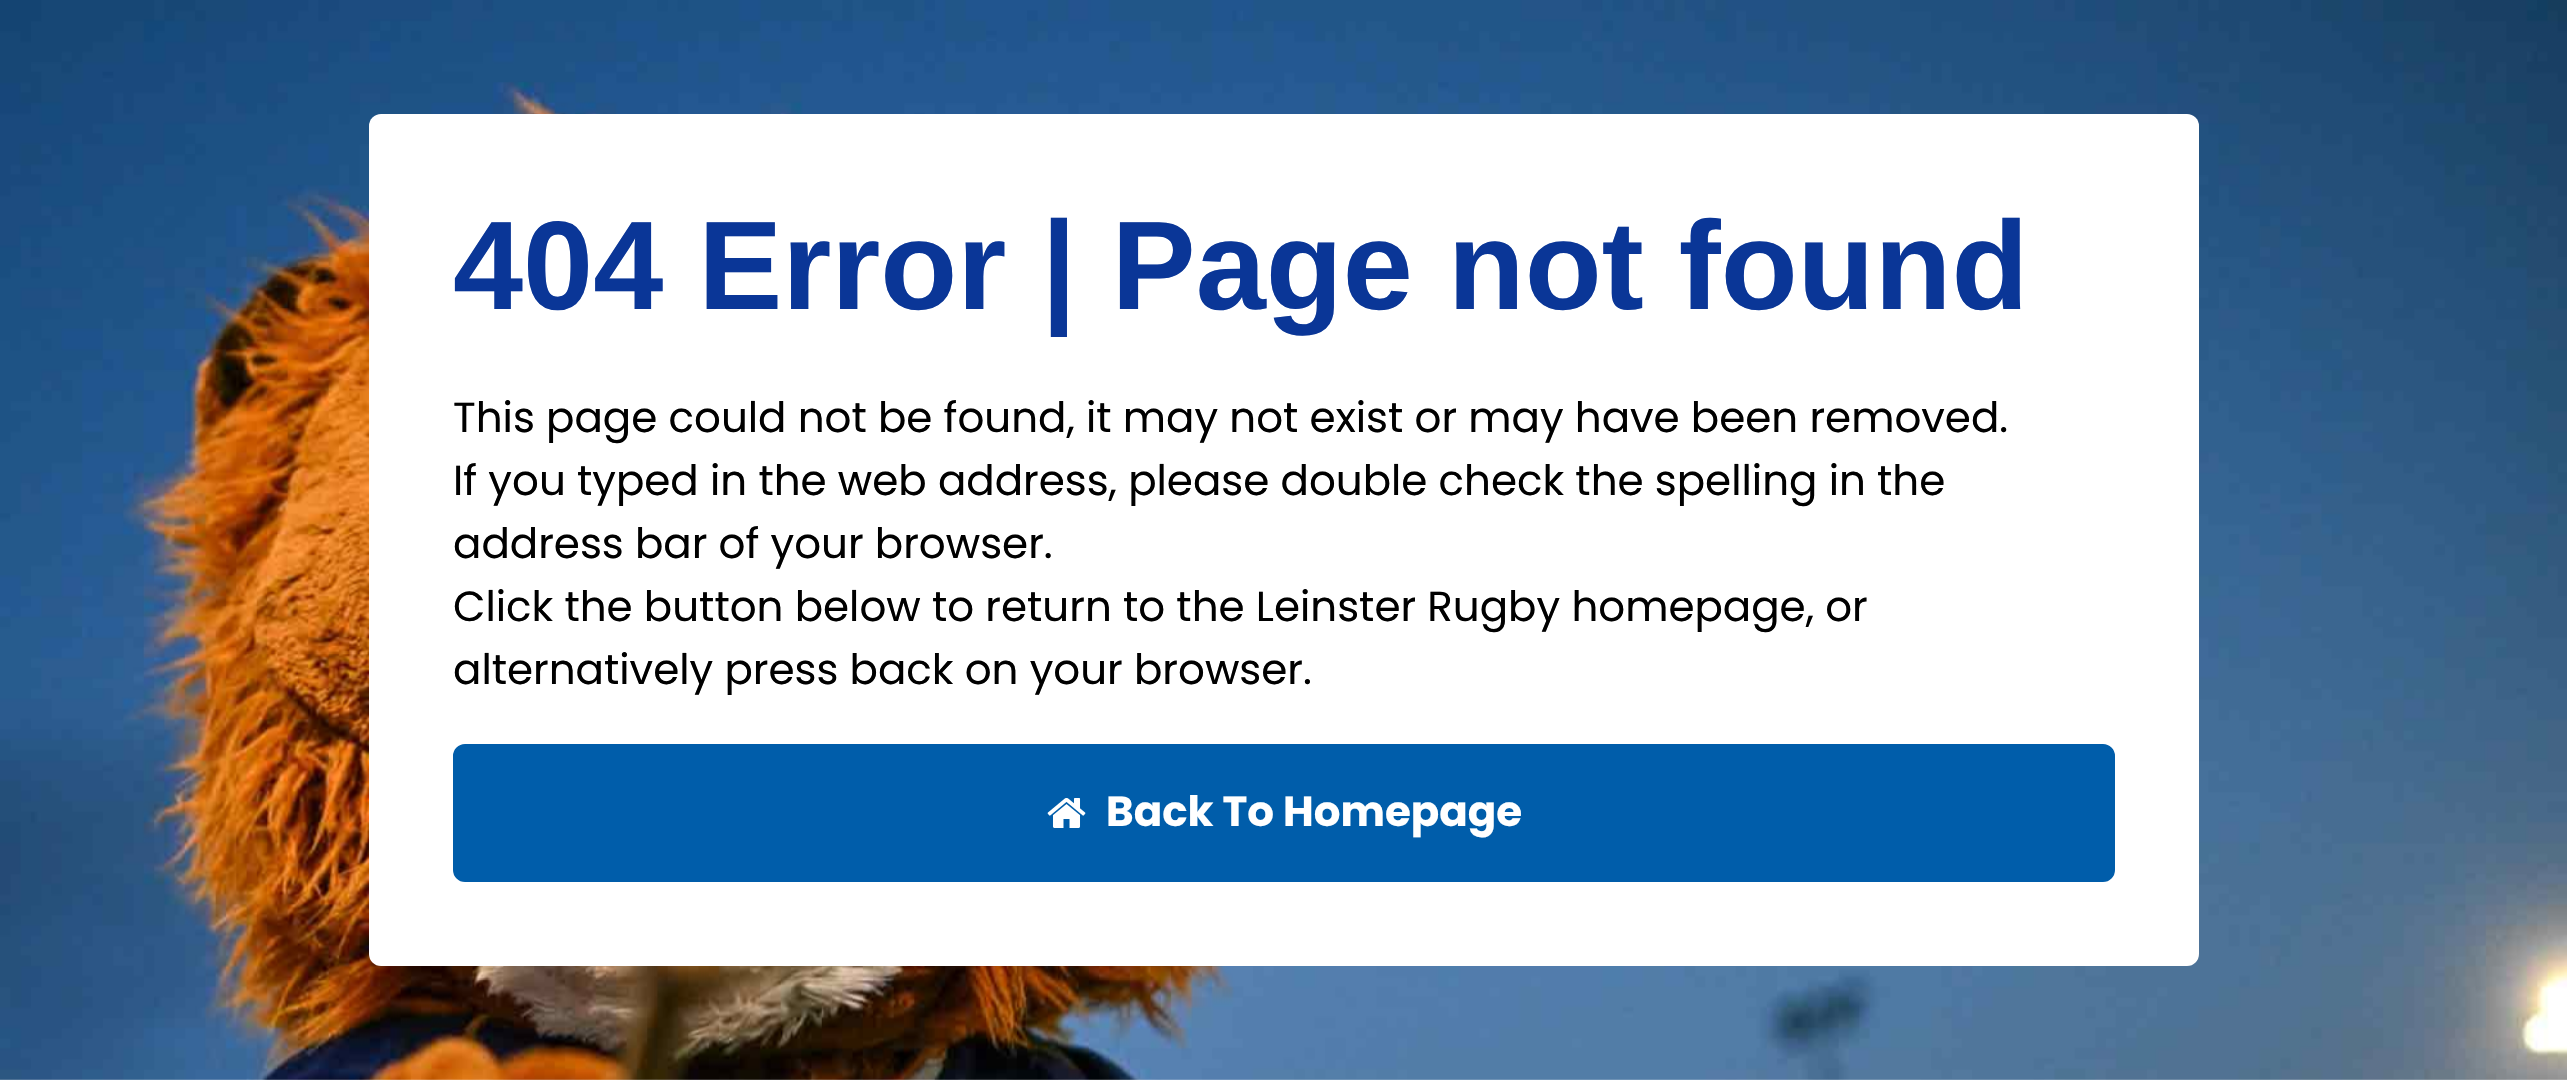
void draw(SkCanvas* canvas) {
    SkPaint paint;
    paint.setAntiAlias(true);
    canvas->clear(0xFFFFFFFF);
    canvas->drawImageRect(SkImages::DeferredFromEncodedData(SkData::MakeFromFileName("img1.png")), SkRect::MakeXYWH(0, 0, 2567, 1080), SkSamplingOptions());
    paint.setColor(0xFFFFFFFF);
    canvas->drawRoundRect(SkRect::MakeXYWH(369, 114, 1830, 852), 12, 12, paint);
    SkFont font1(fontMgr->matchFamilyStyle("Liberation Sans", SkFontStyle::Bold()), 126);
    font1.setSubpixel(true);
    paint.setColor(0xFF0A3697);
    canvas->drawString("404 Error | Page not found", 453, 309, font1, paint);
    SkFont font2(fontMgr->matchFamilyStyle("Poppins", SkFontStyle::Normal()), 42);
    font2.setSubpixel(true);
    paint.setColor(0xFF000000);
    canvas->drawString("This page could not be found, it may not exist or may have been removed.", 453, 432, font2, paint);
    canvas->drawString("If you typed in the web address, please double check the spelling in the", 453, 495, font2, paint);
    canvas->drawString("address bar of your browser.", 453, 558, font2, paint);
    canvas->drawString("Click the button below to return to the Leinster Rugby homepage, or", 453, 621, font2, paint);
    canvas->drawString("alternatively press back on your browser.", 453, 684, font2, paint);
    paint.setColor(0xFF005DAA);
    canvas->drawRoundRect(SkRect::MakeXYWH(456, 747, 1656, 132), 9, 9, paint);
    paint.setStyle(SkPaint::kStroke_Style);
    paint.setStrokeWidth(6);
    canvas->drawRoundRect(SkRect::MakeXYWH(456, 747, 1656, 132), 9, 9, paint);
    canvas->drawImageRect(SkImages::DeferredFromEncodedData(SkData::MakeFromFileName("img2.png")), SkRect::MakeXYWH(1047, 798, 39, 30), SkSamplingOptions());
    SkFont font3(fontMgr->matchFamilyStyle("Poppins", SkFontStyle::Bold()), 42);
    font3.setSubpixel(true);
    paint.setStyle(SkPaint::kFill_Style);
    paint.setColor(0xFFFFFFFF);
    canvas->drawString("Back To Homepage", 1106, 826, font3, paint);
}
